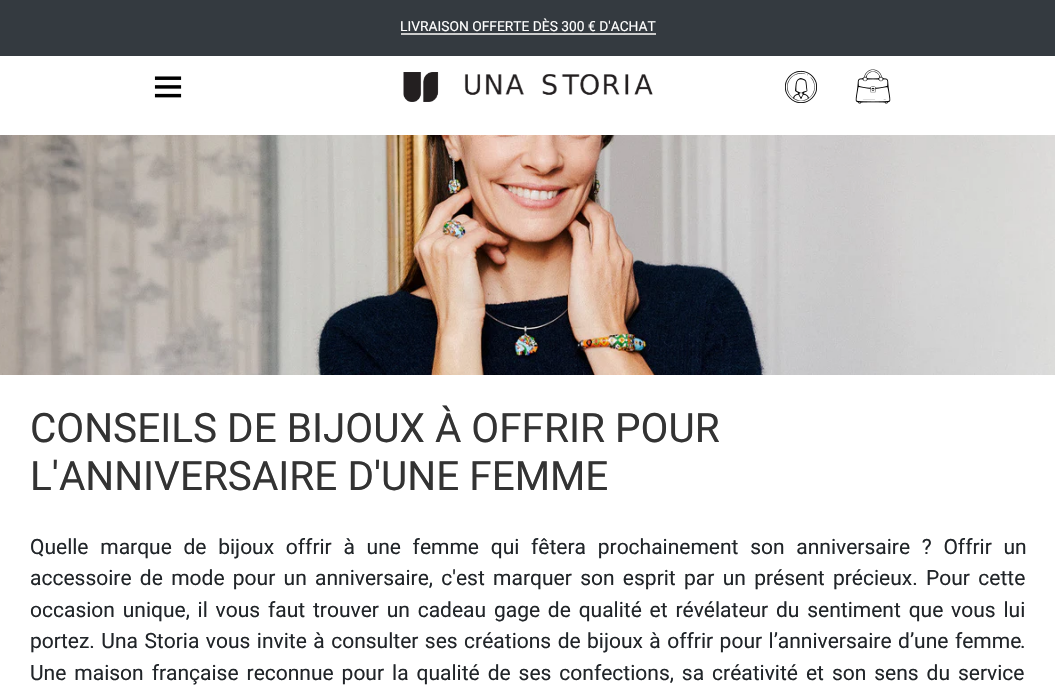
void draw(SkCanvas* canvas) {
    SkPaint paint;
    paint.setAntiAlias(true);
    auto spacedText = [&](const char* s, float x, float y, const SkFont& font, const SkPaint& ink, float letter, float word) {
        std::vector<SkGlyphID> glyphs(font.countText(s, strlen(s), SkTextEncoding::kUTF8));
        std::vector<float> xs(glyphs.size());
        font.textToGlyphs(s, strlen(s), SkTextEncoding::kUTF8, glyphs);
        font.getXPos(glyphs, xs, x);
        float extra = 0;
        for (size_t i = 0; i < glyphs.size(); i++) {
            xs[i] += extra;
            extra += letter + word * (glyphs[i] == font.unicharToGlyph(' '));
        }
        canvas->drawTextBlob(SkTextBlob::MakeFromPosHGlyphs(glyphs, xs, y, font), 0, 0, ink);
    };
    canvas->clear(0xFFFFFFFF);
    paint.setColor(0xFF343A40);
    canvas->drawRect(SkRect::MakeXYWH(0, 0, 1055, 56), paint);
    SkFont font1(fontMgr->matchFamilyStyle("Roboto", SkFontStyle::Normal()), 13.8f);
    font1.setSubpixel(true);
    paint.setColor(0xFFFFFFFF);
    canvas->drawString("LIVRAISON OFFERTE DÈS 300 € D'ACHAT", 400, 31, font1, paint);
    paint.setColor(0xFFCCCCCC);
    canvas->drawRect(SkRect::MakeXYWH(401, 33, 255, 2), paint);
    canvas->drawImageRect(SkImages::DeferredFromEncodedData(SkData::MakeFromFileName("img1.png")), SkRect::MakeXYWH(154, 76, 28, 22), SkSamplingOptions());
    canvas->drawImageRect(SkImages::DeferredFromEncodedData(SkData::MakeFromFileName("img2.png")), SkRect::MakeXYWH(403, 72, 250, 30), SkSamplingOptions());
    canvas->drawImageRect(SkImages::DeferredFromEncodedData(SkData::MakeFromFileName("img3.png")), SkRect::MakeXYWH(785, 70, 32, 33), SkSamplingOptions());
    canvas->drawImageRect(SkImages::DeferredFromEncodedData(SkData::MakeFromFileName("img4.png")), SkRect::MakeXYWH(855, 69, 36, 35), SkSamplingOptions());
    canvas->drawImageRect(SkImages::DeferredFromEncodedData(SkData::MakeFromFileName("img5.png")), SkRect::MakeXYWH(0, 135, 1055, 240), SkSamplingOptions());
    SkFont font2(fontMgr->matchFamilyStyle("Roboto", SkFontStyle::Normal()), 40.5f);
    font2.setSubpixel(true);
    paint.setColor(0xFF333333);
    canvas->drawString("CONSEILS DE BIJOUX À OFFRIR POUR", 30, 442, font2, paint);
    canvas->drawString("L'ANNIVERSAIRE D'UNE FEMME", 30, 490, font2, paint);
    SkFont font3(fontMgr->matchFamilyStyle("Roboto", SkFontStyle::Normal()), 21);
    font3.setSubpixel(true);
    paint.setColor(0xFF212529);
    spacedText("Quelle marque de bijoux offrir à une femme qui fêtera prochainement son anniversaire ? Offrir un", 30, 554, font3, paint, 0, 6.5f);
    spacedText("accessoire de mode pour un anniversaire, c'est marquer son esprit par un présent précieux. Pour cette", 30, 585, font3, paint, 0, 3.1f);
    spacedText("occasion unique, il vous faut trouver un cadeau gage de qualité et révélateur du sentiment que vous lui", 30, 617, font3, paint, 0, 2.6f);
    spacedText("portez. Una Storia vous invite à consulter ses créations de", 30, 648, font3, paint, 0, 1.25f);
    spacedText("bijoux à offrir pour l’anniversaire d’une femme", 587, 648, font3, paint, 0, 1.25f);
    canvas->drawString(".", 1020, 648, font3, paint);
    spacedText("Une maison française reconnue pour la qualité de ses confections, sa créativité et son sens du service", 30, 680, font3, paint, 0, 2.75f);
}
